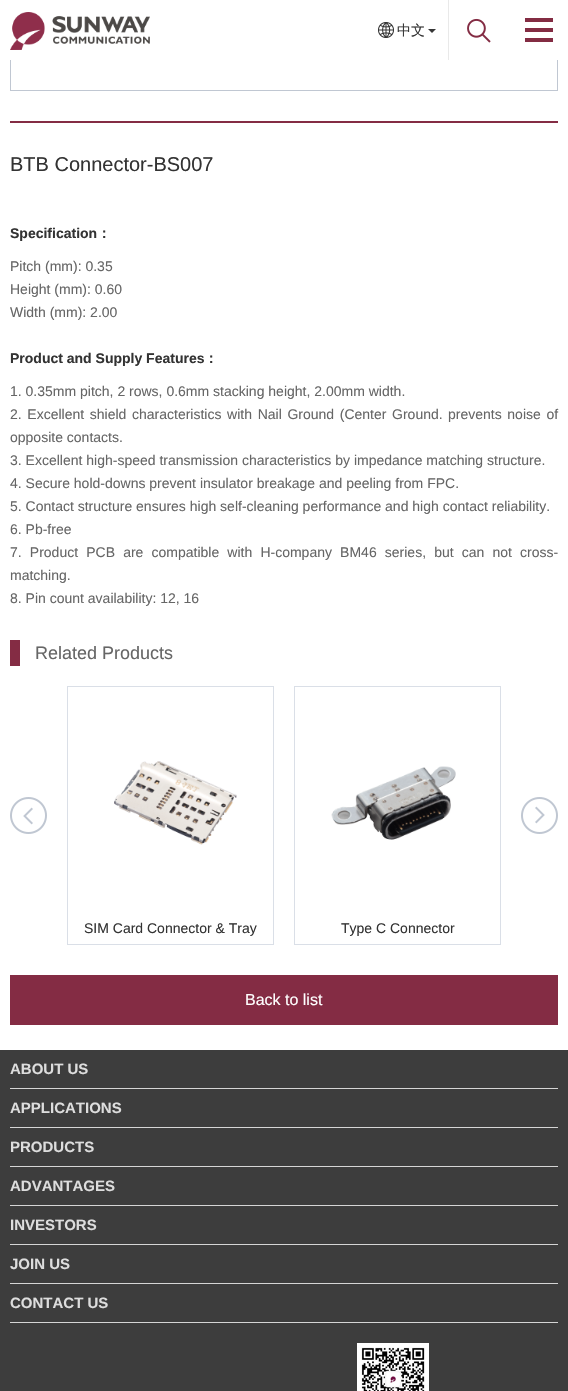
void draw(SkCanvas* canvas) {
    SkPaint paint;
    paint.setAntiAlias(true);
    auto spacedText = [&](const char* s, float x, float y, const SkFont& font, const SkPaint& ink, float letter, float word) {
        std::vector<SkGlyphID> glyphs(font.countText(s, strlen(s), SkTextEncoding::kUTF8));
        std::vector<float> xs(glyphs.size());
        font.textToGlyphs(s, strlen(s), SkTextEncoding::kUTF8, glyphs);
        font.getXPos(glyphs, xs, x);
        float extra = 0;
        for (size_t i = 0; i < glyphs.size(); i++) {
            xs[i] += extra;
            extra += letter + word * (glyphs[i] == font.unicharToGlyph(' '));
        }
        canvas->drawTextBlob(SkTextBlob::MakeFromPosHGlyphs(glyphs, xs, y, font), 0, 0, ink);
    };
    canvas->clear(0xFFFFFFFF);
    paint.setStyle(SkPaint::kStroke_Style);
    paint.setStrokeWidth(1);
    paint.setColor(0xFFC0C7D2);
    canvas->drawRect(SkRect::MakeXYWH(10.5f, -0.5f, 547, 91), paint);
    paint.setStyle(SkPaint::kFill_Style);
    paint.setColor(0xFFFFFFFF);
    canvas->drawRect(SkRect::MakeXYWH(10, 0, 548, 60), paint);
    canvas->drawImageRect(SkImages::DeferredFromEncodedData(SkData::MakeFromFileName("img1.png")), SkRect::MakeXYWH(10, 12, 140, 38), SkSamplingOptions());
    canvas->drawImageRect(SkImages::DeferredFromEncodedData(SkData::MakeFromFileName("img2.png")), SkRect::MakeXYWH(378, 22, 16, 16), SkSamplingOptions());
    SkFont font1(fontMgr->matchFamilyStyle("WenQuanYi Zen Hei", SkFontStyle(500, SkFontStyle::kNormal_Width, SkFontStyle::kUpright_Slant)), 14);
    font1.setSubpixel(true);
    paint.setColor(0xFF333333);
    canvas->drawString("中文", 397, 35, font1, paint);
    paint.setColor(0xFF363636);
    canvas->drawPath(SkPathBuilder().moveTo(428, 29).lineTo(436, 29).lineTo(432, 33).close().detach(), paint);
    canvas->drawImageRect(SkImages::DeferredFromEncodedData(SkData::MakeFromFileName("img3.png")), SkRect::MakeXYWH(467, 18, 24, 25), SkSamplingOptions());
    paint.setColor(0xFFE9E9E9);
    canvas->drawRect(SkRect::MakeXYWH(448, 0, 1, 60), paint);
    paint.setColor(0xFF832C43);
    canvas->drawRect(SkRect::MakeXYWH(525, 18, 28, 4), paint);
    canvas->drawRect(SkRect::MakeXYWH(525, 28, 28, 4), paint);
    canvas->drawRect(SkRect::MakeXYWH(525, 38, 28, 4), paint);
    paint.setColor(0xFF842C44);
    canvas->drawRect(SkRect::MakeXYWH(10, 121, 548, 2), paint);
    SkFont font2(fontMgr->matchFamilyStyle("Liberation Sans", SkFontStyle::Normal()), 20);
    font2.setSubpixel(true);
    paint.setColor(0xFF333333);
    canvas->drawString("BTB Connector-BS007", 10, 171, font2, paint);
    SkFont font3(fontMgr->matchFamilyStyle("Liberation Sans", SkFontStyle::Bold()), 14);
    font3.setSubpixel(true);
    canvas->drawString("Specification", 10, 238, font3, paint);
    SkFont font4(fontMgr->matchFamilyStyle("WenQuanYi Zen Hei", SkFontStyle::Bold()), 14);
    font4.setSubpixel(true);
    canvas->drawString("：", 97, 238, font4, paint);
    SkFont font5(fontMgr->matchFamilyStyle("Liberation Sans", SkFontStyle::Normal()), 14);
    font5.setSubpixel(true);
    paint.setColor(0xFF666666);
    canvas->drawString("Pitch (mm): 0.35", 10, 271, font5, paint);
    canvas->drawString("Height (mm): 0.60", 10, 294, font5, paint);
    canvas->drawString("Width (mm): 2.00", 10, 317, font5, paint);
    paint.setColor(0xFF333333);
    canvas->drawString("Product and Supply Features", 10, 363, font3, paint);
    canvas->drawString("：", 204, 363, font4, paint);
    paint.setColor(0xFF666666);
    canvas->drawString("1. 0.35mm pitch, 2 rows, 0.6mm stacking height, 2.00mm width.", 10, 396, font5, paint);
    spacedText("2. Excellent shield characteristics with Nail Ground (Center Ground.", 10, 419, font5, paint, 0, 1.75f);
    spacedText("prevents noise of", 448, 419, font5, paint, 0, 1.75f);
    canvas->drawString("opposite contacts.", 10, 442, font5, paint);
    canvas->drawString("3. Excellent high-speed transmission characteristics by impedance matching structure.", 10, 465, font5, paint);
    canvas->drawString("4. Secure hold-downs prevent insulator breakage and peeling from FPC.", 10, 488, font5, paint);
    canvas->drawString("5. Contact structure ensures high self-cleaning performance and high contact reliability.", 10, 511, font5, paint);
    canvas->drawString("6. Pb-free", 10, 534, font5, paint);
    spacedText("7. Product PCB are compatible with H-company BM46 series, but can not cross-", 10, 557, font5, paint, 0, 4.25f);
    canvas->drawString("matching.", 10, 580, font5, paint);
    canvas->drawString("8. Pin count availability: 12, 16", 10, 603, font5, paint);
    paint.setColor(0xFF842C44);
    canvas->drawRect(SkRect::MakeXYWH(10, 640, 10, 26), paint);
    SkFont font6(fontMgr->matchFamilyStyle("Liberation Sans", SkFontStyle::Normal()), 18);
    font6.setSubpixel(true);
    paint.setColor(0xFF666666);
    canvas->drawString("Related Products", 35, 659, font6, paint);
    canvas->drawImageRect(SkImages::DeferredFromEncodedData(SkData::MakeFromFileName("img4.png")), SkRect::MakeXYWH(10, 797, 37, 37), SkSamplingOptions());
    canvas->drawImageRect(SkImages::DeferredFromEncodedData(SkData::MakeFromFileName("img5.png")), SkRect::MakeXYWH(521, 797, 37, 37), SkSamplingOptions());
    paint.setStyle(SkPaint::kStroke_Style);
    paint.setColor(0xFFDADFE7);
    canvas->drawRect(SkRect::MakeXYWH(67.5f, 686.5f, 206, 258), paint);
    canvas->drawImageRect(SkImages::DeferredFromEncodedData(SkData::MakeFromFileName("img6.png")), SkRect::MakeXYWH(114, 761, 123, 84), SkSamplingOptions());
    paint.setStyle(SkPaint::kFill_Style);
    paint.setColor(0xFF333333);
    canvas->drawString("SIM Card Connector & Tray", 84, 933, font5, paint);
    paint.setStyle(SkPaint::kStroke_Style);
    paint.setColor(0xFFDADFE7);
    canvas->drawRect(SkRect::MakeXYWH(294.5f, 686.5f, 206, 258), paint);
    canvas->drawImageRect(SkImages::DeferredFromEncodedData(SkData::MakeFromFileName("img7.png")), SkRect::MakeXYWH(331, 766, 125, 74), SkSamplingOptions());
    paint.setStyle(SkPaint::kFill_Style);
    paint.setColor(0xFF333333);
    canvas->drawString("Type C Connector", 341, 933, font5, paint);
    paint.setColor(0xFF842C44);
    canvas->drawRect(SkRect::MakeXYWH(10, 975, 548, 50), paint);
    SkFont font7(fontMgr->matchFamilyStyle("Liberation Sans", SkFontStyle::Normal()), 16);
    font7.setSubpixel(true);
    paint.setColor(0xFFFFFFFF);
    canvas->drawString("Back to list", 245, 1005, font7, paint);
    paint.setColor(0xFF3D3D3D);
    canvas->drawRect(SkRect::MakeXYWH(0, 1050, 568, 341), paint);
    paint.setColor(0xFFD5D5D5);
    canvas->drawRect(SkRect::MakeXYWH(10, 1088, 548, 1), paint);
    SkFont font8(fontMgr->matchFamilyStyle("Liberation Sans", SkFontStyle::Bold()), 15);
    font8.setSubpixel(true);
    paint.setColor(0xFFDDDDDD);
    canvas->drawString("ABOUT US", 10, 1074, font8, paint);
    paint.setColor(0xFFD5D5D5);
    canvas->drawRect(SkRect::MakeXYWH(10, 1127, 548, 1), paint);
    paint.setColor(0xFFDDDDDD);
    canvas->drawString("APPLICATIONS", 10, 1113, font8, paint);
    paint.setColor(0xFFD5D5D5);
    canvas->drawRect(SkRect::MakeXYWH(10, 1166, 548, 1), paint);
    paint.setColor(0xFFDDDDDD);
    canvas->drawString("PRODUCTS", 10, 1152, font8, paint);
    paint.setColor(0xFFD5D5D5);
    canvas->drawRect(SkRect::MakeXYWH(10, 1205, 548, 1), paint);
    paint.setColor(0xFFDDDDDD);
    canvas->drawString("ADVANTAGES", 10, 1191, font8, paint);
    paint.setColor(0xFFD5D5D5);
    canvas->drawRect(SkRect::MakeXYWH(10, 1244, 548, 1), paint);
    paint.setColor(0xFFDDDDDD);
    canvas->drawString("INVESTORS", 10, 1230, font8, paint);
    paint.setColor(0xFFD5D5D5);
    canvas->drawRect(SkRect::MakeXYWH(10, 1283, 548, 1), paint);
    paint.setColor(0xFFDDDDDD);
    canvas->drawString("JOIN US", 10, 1269, font8, paint);
    paint.setColor(0xFFD5D5D5);
    canvas->drawRect(SkRect::MakeXYWH(10, 1322, 548, 1), paint);
    paint.setColor(0xFFDDDDDD);
    canvas->drawString("CONTACT US", 10, 1308, font8, paint);
    canvas->drawImageRect(SkImages::DeferredFromEncodedData(SkData::MakeFromFileName("img8.png")), SkRect::MakeXYWH(357, 1343, 72, 48), SkSamplingOptions());
}
